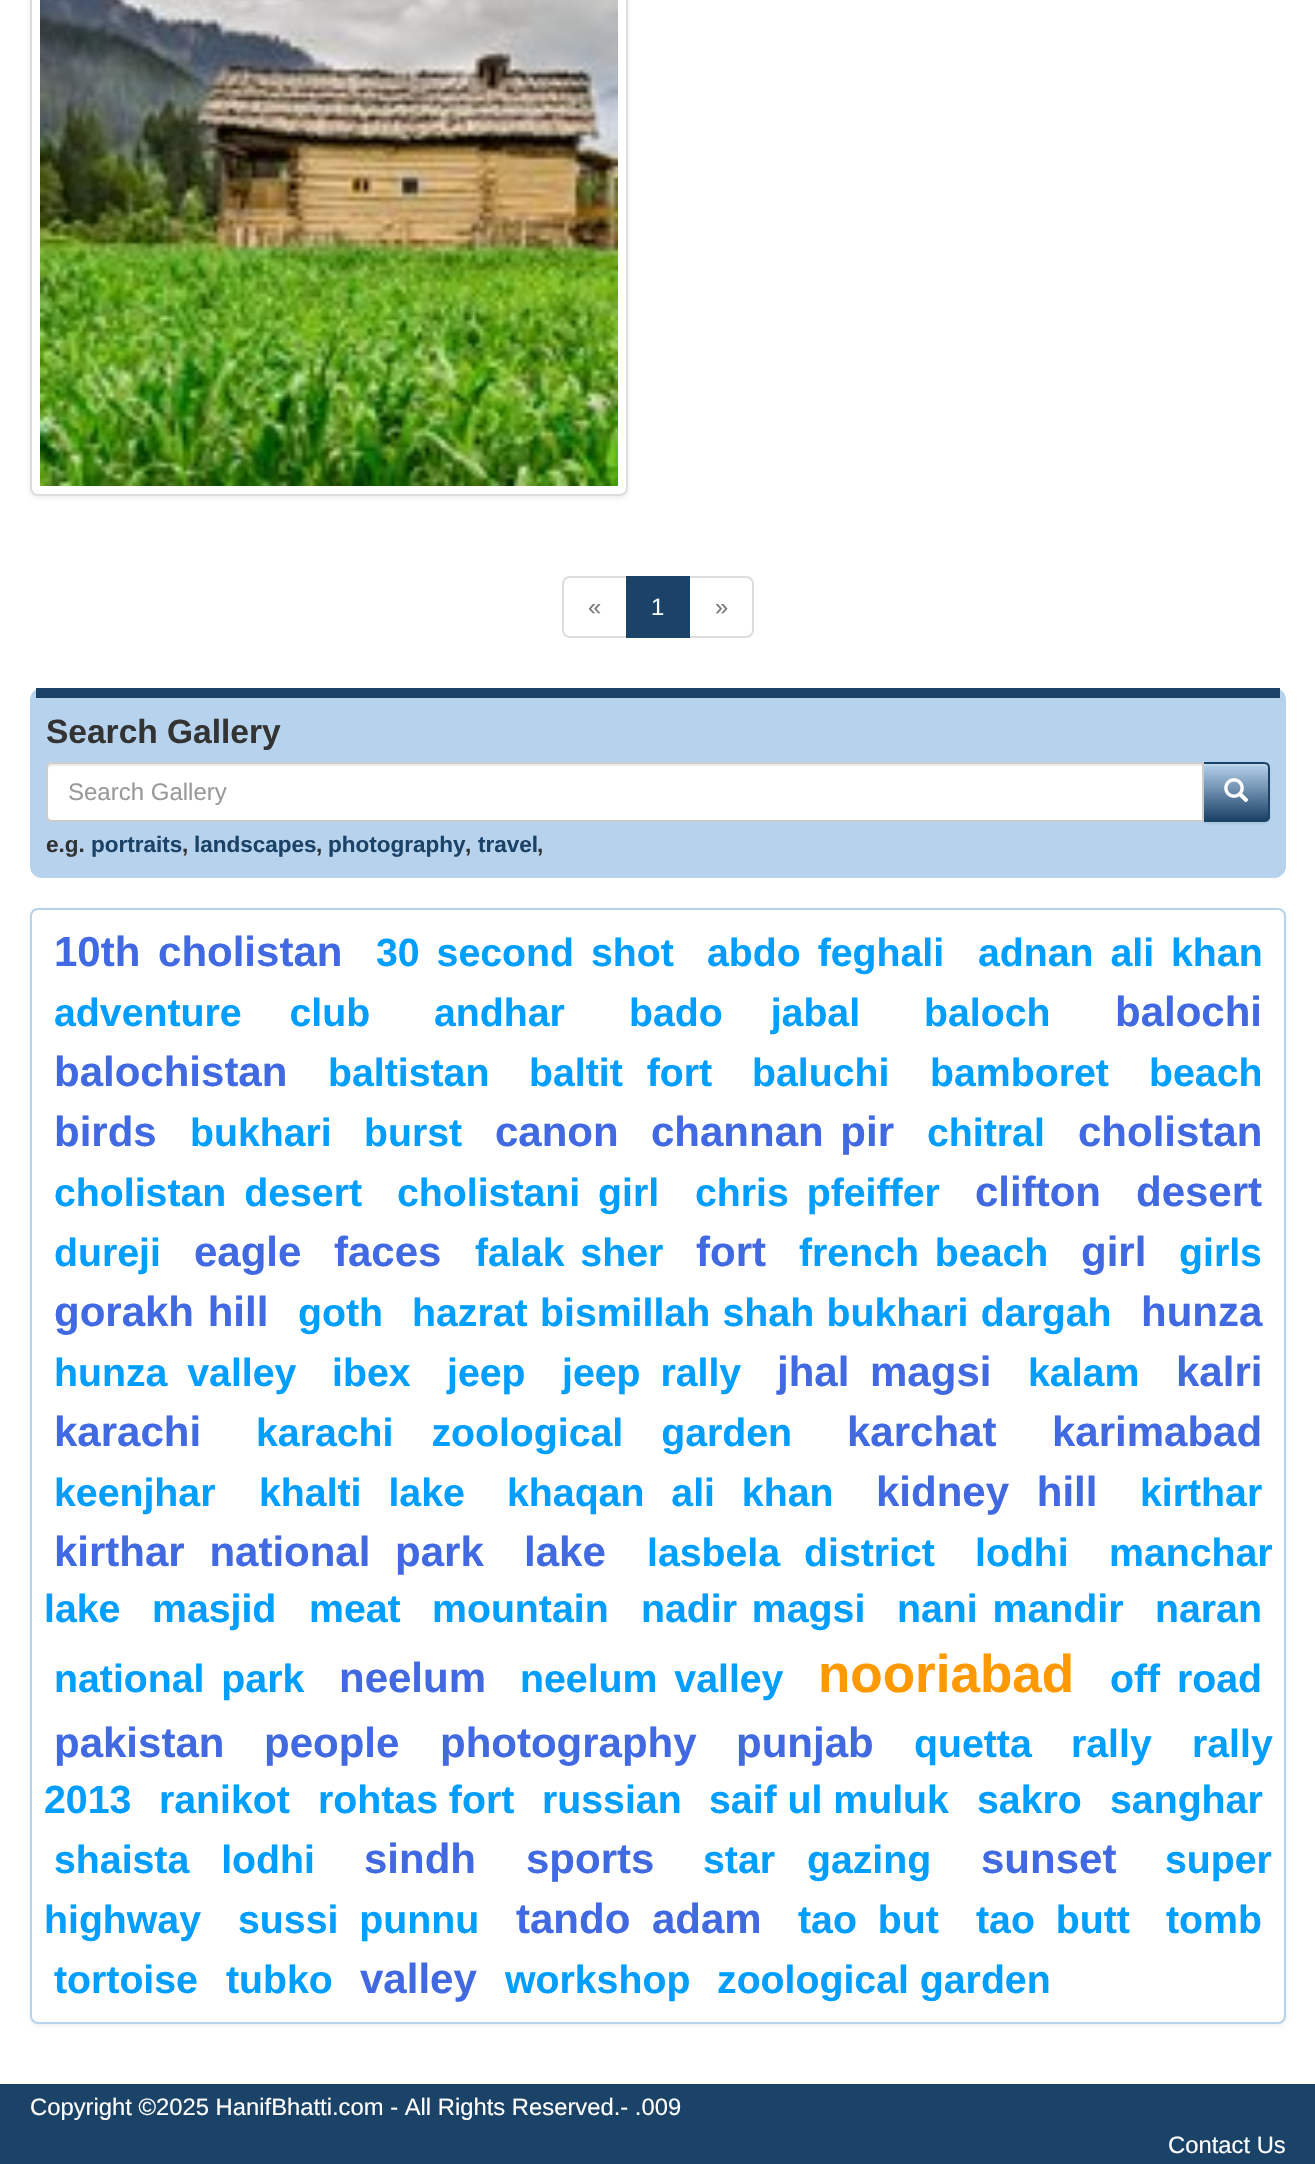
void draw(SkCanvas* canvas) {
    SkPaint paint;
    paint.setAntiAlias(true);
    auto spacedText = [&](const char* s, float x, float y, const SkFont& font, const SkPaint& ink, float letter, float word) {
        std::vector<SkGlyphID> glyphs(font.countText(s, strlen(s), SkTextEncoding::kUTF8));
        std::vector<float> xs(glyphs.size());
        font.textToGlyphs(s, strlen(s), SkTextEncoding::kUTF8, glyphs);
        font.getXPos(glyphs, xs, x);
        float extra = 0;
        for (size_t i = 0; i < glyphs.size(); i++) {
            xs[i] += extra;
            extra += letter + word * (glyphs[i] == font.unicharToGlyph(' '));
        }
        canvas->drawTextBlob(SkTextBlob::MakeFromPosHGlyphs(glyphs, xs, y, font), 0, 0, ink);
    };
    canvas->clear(0xFFFFFFFF);
    paint.setColor(0x12000000);
    paint.setMaskFilter(SkMaskFilter::MakeBlur(kNormal_SkBlurStyle, 2));
    canvas->drawRoundRect(SkRect::MakeXYWH(30, -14, 598, 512), 8, 8, paint);
    paint.setMaskFilter(nullptr);
    paint.setColor(0xFFFFFFFF);
    canvas->drawRoundRect(SkRect::MakeXYWH(31, -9, 596, 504), 7, 7, paint);
    paint.setStyle(SkPaint::kStroke_Style);
    paint.setStrokeWidth(2);
    paint.setColor(0xFFDDDDDD);
    canvas->drawRoundRect(SkRect::MakeXYWH(31, -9, 596, 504), 7, 7, paint);
    canvas->drawImageRect(SkImages::DeferredFromEncodedData(SkData::MakeFromFileName("img1.png")), SkRect::MakeXYWH(40, 0, 578, 486), SkSamplingOptions());
    canvas->drawPath(SkPathBuilder().moveTo(570, 577).lineTo(627, 577).lineTo(627, 637).lineTo(570, 637).cubicTo(566, 637, 563, 634, 563, 630).lineTo(563, 584).cubicTo(563, 580, 566, 577, 570, 577).close().detach(), paint);
    SkFont font1(fontMgr->matchFamilyStyle("Liberation Sans", SkFontStyle::Normal()), 23.8f);
    font1.setSubpixel(true);
    paint.setStyle(SkPaint::kFill_Style);
    paint.setColor(0xFF777777);
    canvas->drawString("«", 588, 615, font1, paint);
    paint.setStyle(SkPaint::kStroke_Style);
    paint.setColor(0xFFDDDDDD);
    canvas->drawPath(SkPathBuilder().moveTo(689, 577).lineTo(746, 577).cubicTo(750, 577, 753, 580, 753, 584).lineTo(753, 630).cubicTo(753, 634, 750, 637, 746, 637).lineTo(689, 637).close().detach(), paint);
    paint.setStyle(SkPaint::kFill_Style);
    paint.setColor(0xFF1B4267);
    canvas->drawRect(SkRect::MakeXYWH(626, 576, 64, 62), paint);
    paint.setColor(0xFFFFFFFF);
    canvas->drawString("1", 651, 615, font1, paint);
    paint.setColor(0xFF777777);
    canvas->drawString("»", 715, 615, font1, paint);
    paint.setColor(0xFFB6D2EC);
    canvas->drawRoundRect(SkRect::MakeXYWH(30, 688, 1256, 190), 12, 12, paint);
    paint.setColor(0xFF1B4267);
    canvas->drawRect(SkRect::MakeXYWH(36, 688, 1244, 10), paint);
    SkFont font2(fontMgr->matchFamilyStyle("Liberation Sans", SkFontStyle::Bold()), 33.5f);
    font2.setSubpixel(true);
    paint.setColor(0xFF333333);
    canvas->drawString("Search Gallery", 46, 743, font2, paint);
    paint.setColor(0x12000000);
    paint.setMaskFilter(SkMaskFilter::MakeBlur(kNormal_SkBlurStyle, 1));
    canvas->drawRoundRect(SkRect::MakeXYWH(1202, 764, 68, 60), 6, 6, paint);
    paint.setMaskFilter(nullptr);
    canvas->save();
    canvas->clipPath(SkPathBuilder().moveTo(1202, 762).lineTo(1264, 762).cubicTo(1267.5f, 762, 1270, 764.5f, 1270, 768).lineTo(1270, 816).cubicTo(1270, 819.5f, 1267.5f, 822, 1264, 822).lineTo(1202, 822).close().detach(), true);
    {
        const SkColor colors[] = {0xFFB6D2EC, 0xFF1B4267};
        const float stops[] = {0, 1};
        const SkPoint ends[] = {{1236, 764}, {1236, 820}};
        paint.setShader(SkGradientShader::MakeLinear(ends, colors, stops, 2, SkTileMode::kClamp));
        paint.setAlpha(255);
    }
    canvas->drawRect(SkRect::MakeXYWH(1204, 764, 66, 56), paint);
    canvas->restore();
    paint.setShader(nullptr);
    paint.setColor(0x26FFFFFF);
    canvas->drawPath(SkPathBuilder().moveTo(1204, 766).lineTo(1264, 766).cubicTo(1266, 766, 1268, 768, 1268, 770).lineTo(1268, 768).cubicTo(1268, 766, 1266, 764, 1264, 764).lineTo(1204, 764).close().detach(), paint);
    paint.setStyle(SkPaint::kStroke_Style);
    paint.setColor(0xFF1B4267);
    canvas->drawPath(SkPathBuilder().moveTo(1203, 763).lineTo(1264, 763).cubicTo(1267, 763, 1269, 765, 1269, 768).lineTo(1269, 816).cubicTo(1269, 819, 1267, 821, 1264, 821).lineTo(1203, 821).close().detach(), paint);
    paint.setStyle(SkPaint::kFill_Style);
    paint.setColor(0xFFFFFFFF);
    canvas->drawPath(SkPathBuilder().moveTo(52, 762).lineTo(1204, 762).lineTo(1204, 822).lineTo(52, 822).cubicTo(48.5f, 822, 46, 819.5f, 46, 816).lineTo(46, 768).cubicTo(46, 764.5f, 48.5f, 762, 52, 762).close().detach(), paint);
    paint.setColor(0xFFECECEC);
    canvas->drawPath(SkPathBuilder().moveTo(52, 766).lineTo(1202, 766).lineTo(1202, 764).lineTo(52, 764).cubicTo(50, 764, 48, 766, 48, 768).lineTo(48, 770).cubicTo(48, 768, 50, 766, 52, 766).close().detach(), paint);
    paint.setStyle(SkPaint::kStroke_Style);
    paint.setColor(0xFFCCCCCC);
    canvas->drawPath(SkPathBuilder().moveTo(52, 763).lineTo(1203, 763).lineTo(1203, 821).lineTo(52, 821).cubicTo(49, 821, 47, 819, 47, 816).lineTo(47, 768).cubicTo(47, 765, 49, 763, 52, 763).close().detach(), paint);
    SkFont font3(fontMgr->matchFamilyStyle("Liberation Sans", SkFontStyle::Normal()), 24);
    font3.setSubpixel(true);
    paint.setStyle(SkPaint::kFill_Style);
    paint.setColor(0xFF999999);
    canvas->drawString("Search Gallery", 68, 800, font3, paint);
    canvas->drawImageRect(SkImages::DeferredFromEncodedData(SkData::MakeFromFileName("img2.png")), SkRect::MakeXYWH(1224, 778, 25, 25), SkSamplingOptions());
    SkFont font4(fontMgr->matchFamilyStyle("Liberation Sans", SkFontStyle::Bold()), 22.5f);
    font4.setSubpixel(true);
    paint.setColor(0xFF333333);
    canvas->drawString("e.g.", 46, 852, font4, paint);
    paint.setColor(0xFF1B4267);
    canvas->drawString("portraits", 91, 852, font4, paint);
    paint.setColor(0xFF333333);
    canvas->drawString(",", 182, 852, font4, paint);
    paint.setColor(0xFF1B4267);
    canvas->drawString("landscapes", 194, 852, font4, paint);
    paint.setColor(0xFF333333);
    canvas->drawString(",", 316, 852, font4, paint);
    paint.setColor(0xFF1B4267);
    canvas->drawString("photography", 328, 852, font4, paint);
    paint.setColor(0xFF333333);
    canvas->drawString(",", 465, 852, font4, paint);
    paint.setColor(0xFF1B4267);
    canvas->drawString("travel", 478, 852, font4, paint);
    paint.setColor(0xFF333333);
    canvas->drawString(",", 537, 852, font4, paint);
    paint.setColor(0x0D000000);
    paint.setMaskFilter(SkMaskFilter::MakeBlur(kNormal_SkBlurStyle, 2));
    canvas->drawRoundRect(SkRect::MakeXYWH(30, 910, 1256, 1116), 8, 8, paint);
    paint.setMaskFilter(nullptr);
    paint.setColor(0xFFFFFFFF);
    canvas->drawRoundRect(SkRect::MakeXYWH(31, 909, 1254, 1114), 7, 7, paint);
    paint.setStyle(SkPaint::kStroke_Style);
    paint.setColor(0xFFB6D2EC);
    canvas->drawRoundRect(SkRect::MakeXYWH(31, 909, 1254, 1114), 7, 7, paint);
    SkFont font5(fontMgr->matchFamilyStyle("Liberation Sans", SkFontStyle::Bold()), 42);
    font5.setSubpixel(true);
    paint.setStyle(SkPaint::kFill_Style);
    paint.setColor(0xFF4169E1);
    spacedText("10th cholistan", 54, 966, font5, paint, 0, 6);
    SkFont font6(fontMgr->matchFamilyStyle("Liberation Sans", SkFontStyle::Bold()), 39.25f);
    font6.setSubpixel(true);
    paint.setColor(0xFF009EFF);
    spacedText("30 second shot", 376, 966, font6, paint, 0, 6);
    spacedText("abdo feghali", 707, 966, font6, paint, 0, 6);
    spacedText("adnan ali khan", 978, 966, font6, paint, 0, 6);
    spacedText("adventure club", 54, 1026, font6, paint, 0, 37);
    canvas->drawString("andhar", 434, 1026, font6, paint);
    spacedText("bado jabal", 629, 1026, font6, paint, 0, 37);
    canvas->drawString("baloch", 924, 1026, font6, paint);
    paint.setColor(0xFF4169E1);
    canvas->drawString("balochi", 1115, 1026, font5, paint);
    canvas->drawString("balochistan", 54, 1086, font5, paint);
    paint.setColor(0xFF009EFF);
    canvas->drawString("baltistan", 328, 1086, font6, paint);
    spacedText("baltit fort", 529, 1086, font6, paint, 0, 13);
    canvas->drawString("baluchi", 752, 1086, font6, paint);
    canvas->drawString("bamboret", 930, 1086, font6, paint);
    canvas->drawString("beach", 1149, 1086, font6, paint);
    paint.setColor(0xFF4169E1);
    canvas->drawString("birds", 54, 1146, font5, paint);
    paint.setColor(0xFF009EFF);
    canvas->drawString("bukhari", 190, 1146, font6, paint);
    canvas->drawString("burst", 364, 1146, font6, paint);
    paint.setColor(0xFF4169E1);
    canvas->drawString("canon", 495, 1146, font5, paint);
    spacedText("channan pir", 651, 1146, font5, paint, 0, 5);
    paint.setColor(0xFF009EFF);
    canvas->drawString("chitral", 927, 1146, font6, paint);
    paint.setColor(0xFF4169E1);
    canvas->drawString("cholistan", 1078, 1146, font5, paint);
    paint.setColor(0xFF009EFF);
    spacedText("cholistan desert", 54, 1206, font6, paint, 0, 7);
    spacedText("cholistani girl", 397, 1206, font6, paint, 0, 7);
    spacedText("chris pfeiffer", 695, 1206, font6, paint, 0, 7);
    paint.setColor(0xFF4169E1);
    canvas->drawString("clifton", 975, 1206, font5, paint);
    canvas->drawString("desert", 1136, 1206, font5, paint);
    paint.setColor(0xFF009EFF);
    canvas->drawString("dureji", 54, 1266, font6, paint);
    paint.setColor(0xFF4169E1);
    canvas->drawString("eagle", 194, 1266, font5, paint);
    canvas->drawString("faces", 334, 1266, font5, paint);
    paint.setColor(0xFF009EFF);
    spacedText("falak sher", 475, 1266, font6, paint, 0, 5);
    paint.setColor(0xFF4169E1);
    canvas->drawString("fort", 696, 1266, font5, paint);
    paint.setColor(0xFF009EFF);
    spacedText("french beach", 799, 1266, font6, paint, 0, 5);
    paint.setColor(0xFF4169E1);
    canvas->drawString("girl", 1081, 1266, font5, paint);
    paint.setColor(0xFF009EFF);
    canvas->drawString("girls", 1179, 1266, font6, paint);
    paint.setColor(0xFF4169E1);
    spacedText("gorakh hill", 54, 1326, font5, paint, 0, 2);
    paint.setColor(0xFF009EFF);
    canvas->drawString("goth", 298, 1326, font6, paint);
    spacedText("hazrat bismillah shah bukhari dargah", 412, 1326, font6, paint, 0, 1.5f);
    paint.setColor(0xFF4169E1);
    canvas->drawString("hunza", 1141, 1326, font5, paint);
    paint.setColor(0xFF009EFF);
    spacedText("hunza valley", 54, 1386, font6, paint, 0, 9);
    canvas->drawString("ibex", 332, 1386, font6, paint);
    canvas->drawString("jeep", 447, 1386, font6, paint);
    spacedText("jeep rally", 562, 1386, font6, paint, 0, 9);
    paint.setColor(0xFF4169E1);
    spacedText("jhal magsi", 777, 1386, font5, paint, 0, 9);
    paint.setColor(0xFF009EFF);
    canvas->drawString("kalam", 1028, 1386, font6, paint);
    paint.setColor(0xFF4169E1);
    canvas->drawString("kalri", 1176, 1386, font5, paint);
    canvas->drawString("karachi", 54, 1446, font5, paint);
    paint.setColor(0xFF009EFF);
    spacedText("karachi zoological garden", 256, 1446, font6, paint, 0, 27);
    paint.setColor(0xFF4169E1);
    canvas->drawString("karchat", 847, 1446, font5, paint);
    canvas->drawString("karimabad", 1052, 1446, font5, paint);
    paint.setColor(0xFF009EFF);
    canvas->drawString("keenjhar", 54, 1506, font6, paint);
    spacedText("khalti lake", 259, 1506, font6, paint, 0, 16);
    spacedText("khaqan ali khan", 507, 1506, font6, paint, 0, 16);
    paint.setColor(0xFF4169E1);
    spacedText("kidney hill", 876, 1506, font5, paint, 0, 16);
    paint.setColor(0xFF009EFF);
    canvas->drawString("kirthar", 1140, 1506, font6, paint);
    paint.setColor(0xFF4169E1);
    spacedText("kirthar national park", 54, 1566, font5, paint, 0, 13);
    canvas->drawString("lake", 524, 1566, font5, paint);
    paint.setColor(0xFF009EFF);
    spacedText("lasbela district", 647, 1566, font6, paint, 0, 13);
    canvas->drawString("lodhi", 975, 1566, font6, paint);
    canvas->drawString("manchar", 1109, 1566, font6, paint);
    canvas->drawString("lake", 44, 1622, font6, paint);
    canvas->drawString("masjid", 152, 1622, font6, paint);
    canvas->drawString("meat", 309, 1622, font6, paint);
    canvas->drawString("mountain", 432, 1622, font6, paint);
    spacedText("nadir magsi", 641, 1622, font6, paint, 0, 4);
    spacedText("nani mandir", 897, 1622, font6, paint, 0, 4);
    canvas->drawString("naran", 1155, 1622, font6, paint);
    spacedText("national park", 54, 1692, font6, paint, 0, 6);
    paint.setColor(0xFF4169E1);
    canvas->drawString("neelum", 339, 1692, font5, paint);
    paint.setColor(0xFF009EFF);
    spacedText("neelum valley", 520, 1692, font6, paint, 0, 6);
    SkFont font7(fontMgr->matchFamilyStyle("Liberation Sans", SkFontStyle::Bold()), 53);
    font7.setSubpixel(true);
    paint.setColor(0xFFFF9900);
    canvas->drawString("nooriabad", 818, 1692, font7, paint);
    paint.setColor(0xFF009EFF);
    spacedText("off road", 1110, 1692, font6, paint, 0, 6);
    paint.setColor(0xFF4169E1);
    canvas->drawString("pakistan", 54, 1757, font5, paint);
    canvas->drawString("people", 264, 1757, font5, paint);
    canvas->drawString("photography", 440, 1757, font5, paint);
    canvas->drawString("punjab", 736, 1757, font5, paint);
    paint.setColor(0xFF009EFF);
    canvas->drawString("quetta", 914, 1757, font6, paint);
    canvas->drawString("rally", 1071, 1757, font6, paint);
    canvas->drawString("rally", 1192, 1757, font6, paint);
    canvas->drawString("2013", 44, 1813, font6, paint);
    canvas->drawString("ranikot", 159, 1813, font6, paint);
    canvas->drawString("rohtas fort", 318, 1813, font6, paint);
    canvas->drawString("russian", 542, 1813, font6, paint);
    canvas->drawString("saif ul muluk", 709, 1813, font6, paint);
    canvas->drawString("sakro", 977, 1813, font6, paint);
    canvas->drawString("sanghar", 1110, 1813, font6, paint);
    spacedText("shaista lodhi", 54, 1873, font6, paint, 0, 21);
    paint.setColor(0xFF4169E1);
    canvas->drawString("sindh", 364, 1873, font5, paint);
    canvas->drawString("sports", 526, 1873, font5, paint);
    paint.setColor(0xFF009EFF);
    spacedText("star gazing", 703, 1873, font6, paint, 0, 21);
    paint.setColor(0xFF4169E1);
    canvas->drawString("sunset", 981, 1873, font5, paint);
    paint.setColor(0xFF009EFF);
    canvas->drawString("super", 1165, 1873, font6, paint);
    canvas->drawString("highway", 44, 1933, font6, paint);
    spacedText("sussi punnu", 238, 1933, font6, paint, 0, 10);
    paint.setColor(0xFF4169E1);
    spacedText("tando adam", 516, 1933, font5, paint, 0, 10);
    paint.setColor(0xFF009EFF);
    spacedText("tao but", 798, 1933, font6, paint, 0, 10);
    spacedText("tao butt", 976, 1933, font6, paint, 0, 10);
    canvas->drawString("tomb", 1166, 1933, font6, paint);
    canvas->drawString("tortoise", 54, 1993, font6, paint);
    canvas->drawString("tubko", 226, 1993, font6, paint);
    paint.setColor(0xFF4169E1);
    canvas->drawString("valley", 360, 1993, font5, paint);
    paint.setColor(0xFF009EFF);
    canvas->drawString("workshop", 505, 1993, font6, paint);
    canvas->drawString("zoological garden", 717, 1993, font6, paint);
    paint.setColor(0xFF1B4267);
    canvas->drawRect(SkRect::MakeXYWH(0, 2084, 1315, 80), paint);
    paint.setColor(0xFFFFFFFF);
    canvas->drawString("Copyright ©2025 HanifBhatti.com - All Rights Reserved.- .009", 30, 2115, font1, paint);
    canvas->drawString("Contact Us", 1168, 2153, font1, paint);
}
